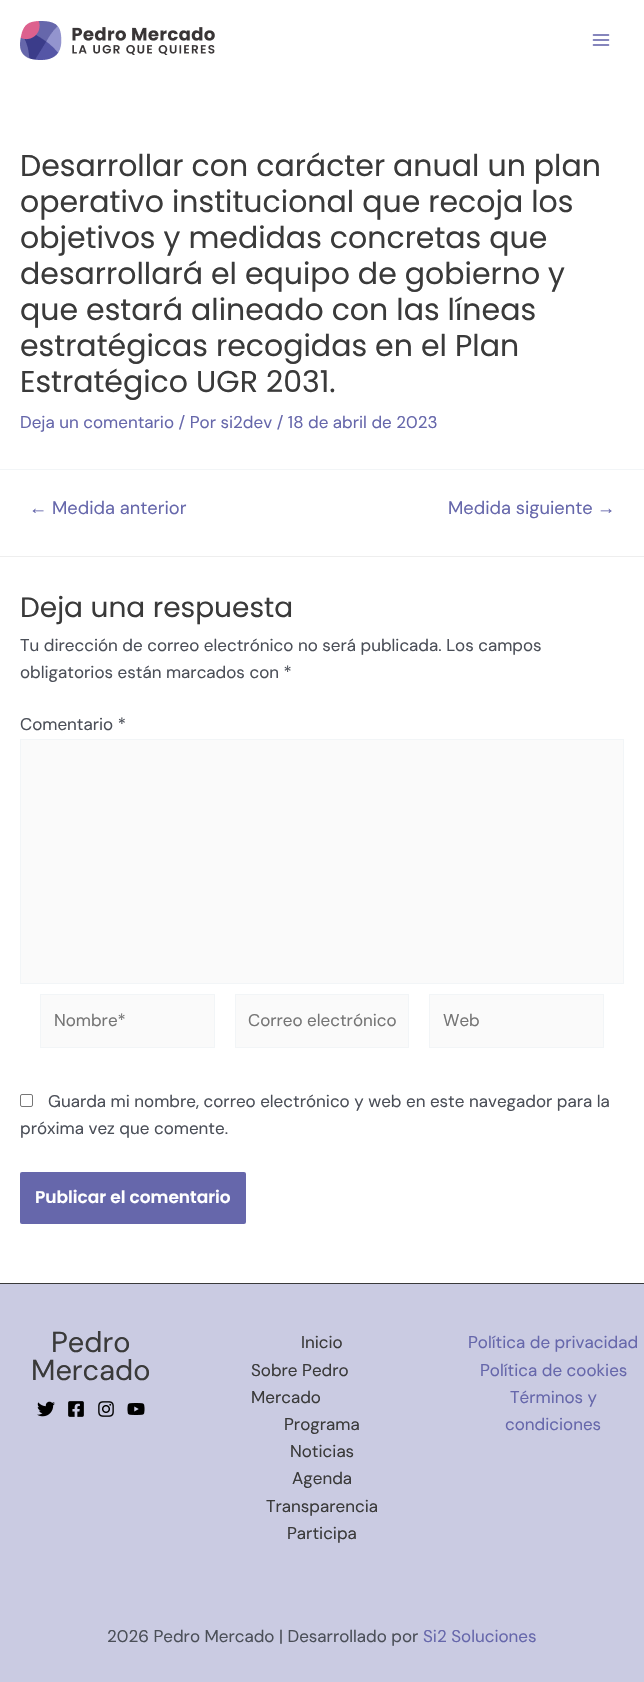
void draw(SkCanvas* canvas) {
    SkPaint paint;
    paint.setAntiAlias(true);
    canvas->clear(0xFFFFFFFF);
    canvas->drawImageRect(SkImages::DeferredFromEncodedData(SkData::MakeFromFileName("img1.png")), SkRect::MakeXYWH(20, 21, 195, 39), SkSamplingOptions());
    canvas->drawImageRect(SkImages::DeferredFromEncodedData(SkData::MakeFromFileName("img2.png")), SkRect::MakeXYWH(592, 34, 18, 12), SkSamplingOptions());
    SkFont font1(fontMgr->matchFamilyStyle("Poppins", SkFontStyle::Normal()), 30);
    font1.setSubpixel(true);
    paint.setColor(0xFF3A3A3A);
    canvas->drawString("Desarrollar con carácter anual un plan", 20, 176, font1, paint);
    canvas->drawString("operativo institucional que recoja los", 20, 212, font1, paint);
    canvas->drawString("objetivos y medidas concretas que", 20, 248, font1, paint);
    canvas->drawString("desarrollará el equipo de gobierno y", 20, 284, font1, paint);
    canvas->drawString("que estará alineado con las líneas", 20, 320, font1, paint);
    canvas->drawString("estratégicas recogidas en el Plan", 20, 356, font1, paint);
    canvas->drawString("Estratégico UGR 2031.", 20, 392, font1, paint);
    SkFont font2(fontMgr->matchFamilyStyle("DM Sans", SkFontStyle::Normal()), 17);
    font2.setSubpixel(true);
    paint.setColor(0xFF6667AB);
    canvas->drawString("Deja un comentario / Por si2dev / 18 de abril de 2023", 20, 428, font2, paint);
    paint.setColor(0xFFF2F5F7);
    canvas->drawRect(SkRect::MakeXYWH(0, 469, 644, 1), paint);
    SkFont font3(fontMgr->matchFamilyStyle("Liberation Sans", SkFontStyle::Normal()), 18.25f);
    font3.setSubpixel(true);
    paint.setColor(0xFF6667AB);
    canvas->drawString("←", 29, 514, font3, paint);
    SkFont font4(fontMgr->matchFamilyStyle("DM Sans", SkFontStyle::Normal()), 18.25f);
    font4.setSubpixel(true);
    canvas->drawString("Medida anterior", 52, 514, font4, paint);
    canvas->drawString("Medida siguiente", 448, 514, font4, paint);
    canvas->drawString("→", 597, 514, font3, paint);
    paint.setColor(0xFFEEEEEE);
    canvas->drawRect(SkRect::MakeXYWH(0, 556, 644, 1), paint);
    SkFont font5(fontMgr->matchFamilyStyle("Poppins", SkFontStyle::Normal()), 28);
    font5.setSubpixel(true);
    paint.setColor(0xFF3A3A3A);
    canvas->drawString("Deja una respuesta", 20, 617, font5, paint);
    paint.setColor(0xFF4B4F58);
    canvas->drawString("Tu dirección de correo electrónico no será publicada. Los campos", 20, 651, font2, paint);
    canvas->drawString("obligatorios están marcados con *", 20, 678, font2, paint);
    canvas->drawString("Comentario *", 20, 730, font2, paint);
    paint.setColor(0xFFFAFAFA);
    canvas->drawRect(SkRect::MakeXYWH(20.5f, 739.5f, 603, 244), paint);
    paint.setStyle(SkPaint::kStroke_Style);
    paint.setStrokeWidth(1);
    paint.setColor(0xFFF2F5F7);
    canvas->drawRect(SkRect::MakeXYWH(20.5f, 739.5f, 603, 244), paint);
    paint.setStyle(SkPaint::kFill_Style);
    paint.setColor(0xFFFAFAFA);
    canvas->drawRect(SkRect::MakeXYWH(40.5f, 994.5f, 174, 53), paint);
    paint.setStyle(SkPaint::kStroke_Style);
    paint.setColor(0xFFF2F5F7);
    canvas->drawRect(SkRect::MakeXYWH(40.5f, 994.5f, 174, 53), paint);
    paint.setStyle(SkPaint::kFill_Style);
    paint.setColor(0xFF757575);
    canvas->drawString("Nombre*", 54, 1026, font2, paint);
    paint.setColor(0xFFFAFAFA);
    canvas->drawRect(SkRect::MakeXYWH(235.5f, 994.5f, 173, 53), paint);
    paint.setStyle(SkPaint::kStroke_Style);
    paint.setColor(0xFFF2F5F7);
    canvas->drawRect(SkRect::MakeXYWH(235.5f, 994.5f, 173, 53), paint);
    canvas->save();
    canvas->clipRect(SkRect::MakeXYWH(248, 1009, 148, 22));
    paint.setStyle(SkPaint::kFill_Style);
    paint.setColor(0xFF757575);
    canvas->drawString("Correo electrónico", 248, 1026, font2, paint);
    canvas->restore();
    paint.setColor(0xFFFAFAFA);
    canvas->drawRect(SkRect::MakeXYWH(429.5f, 994.5f, 174, 53), paint);
    paint.setStyle(SkPaint::kStroke_Style);
    paint.setColor(0xFFF2F5F7);
    canvas->drawRect(SkRect::MakeXYWH(429.5f, 994.5f, 174, 53), paint);
    paint.setStyle(SkPaint::kFill_Style);
    paint.setColor(0xFF757575);
    canvas->drawString("Web", 443, 1026, font2, paint);
    paint.setStyle(SkPaint::kStroke_Style);
    paint.setColor(0xFF767676);
    canvas->drawRoundRect(SkRect::MakeXYWH(20.5f, 1094.5f, 12, 12), 1.5f, 1.5f, paint);
    paint.setStyle(SkPaint::kFill_Style);
    paint.setColor(0xFF4B4F58);
    canvas->drawString("Guarda mi nombre, correo electrónico y web en este navegador para la", 48, 1107, font2, paint);
    canvas->drawString("próxima vez que comente.", 20, 1134, font2, paint);
    paint.setColor(0xFF6667AB);
    canvas->drawRoundRect(SkRect::MakeXYWH(20, 1172, 226, 52), 2, 2, paint);
    SkFont font6(fontMgr->matchFamilyStyle("Poppins", SkFontStyle(600, SkFontStyle::kNormal_Width, SkFontStyle::kUpright_Slant)), 17);
    font6.setSubpixel(true);
    paint.setColor(0xFFFFFFFF);
    canvas->drawString("Publicar el comentario", 35, 1203, font6, paint);
    paint.setColor(0xFFCACBE2);
    canvas->drawRect(SkRect::MakeXYWH(0, 1284, 644, 398), paint);
    paint.setColor(0xFF3A3A3A);
    canvas->drawRect(SkRect::MakeXYWH(0, 1283, 644, 1), paint);
    SkFont font7(fontMgr->matchFamilyStyle("DM Sans", SkFontStyle::Normal()), 29);
    font7.setSubpixel(true);
    canvas->drawString("Pedro", 51, 1352, font7, paint);
    canvas->drawString("Mercado", 31, 1380, font7, paint);
    canvas->drawImageRect(SkImages::DeferredFromEncodedData(SkData::MakeFromFileName("img3.png")), SkRect::MakeXYWH(37, 1401, 18, 16), SkSamplingOptions());
    canvas->drawImageRect(SkImages::DeferredFromEncodedData(SkData::MakeFromFileName("img4.png")), SkRect::MakeXYWH(68, 1401, 16, 16), SkSamplingOptions());
    canvas->drawImageRect(SkImages::DeferredFromEncodedData(SkData::MakeFromFileName("img5.png")), SkRect::MakeXYWH(98, 1401, 16, 16), SkSamplingOptions());
    canvas->drawImageRect(SkImages::DeferredFromEncodedData(SkData::MakeFromFileName("img6.png")), SkRect::MakeXYWH(127, 1403, 18, 12), SkSamplingOptions());
    canvas->drawString("Inicio", 301, 1348, font2, paint);
    canvas->drawString("Sobre Pedro", 251, 1376, font2, paint);
    canvas->drawString("Mercado", 251, 1403, font2, paint);
    canvas->drawString("Programa", 284, 1430, font2, paint);
    canvas->drawString("Noticias", 290, 1457, font2, paint);
    canvas->drawString("Agenda", 292, 1484, font2, paint);
    canvas->drawString("Transparencia", 266, 1512, font2, paint);
    canvas->drawString("Participa", 287, 1539, font2, paint);
    paint.setColor(0xFF6667AB);
    canvas->drawString("Política de privacidad", 468, 1348, font2, paint);
    canvas->drawString("Política de cookies", 480, 1376, font2, paint);
    canvas->drawString("Términos y", 510, 1403, font2, paint);
    canvas->drawString("condiciones", 505, 1430, font2, paint);
    paint.setColor(0xFF4B4F58);
    canvas->drawString("2026 Pedro Mercado | Desarrollado por", 107, 1642, font2, paint);
    paint.setColor(0xFF6667AB);
    canvas->drawString("Si2 Soluciones", 423, 1642, font2, paint);
}
